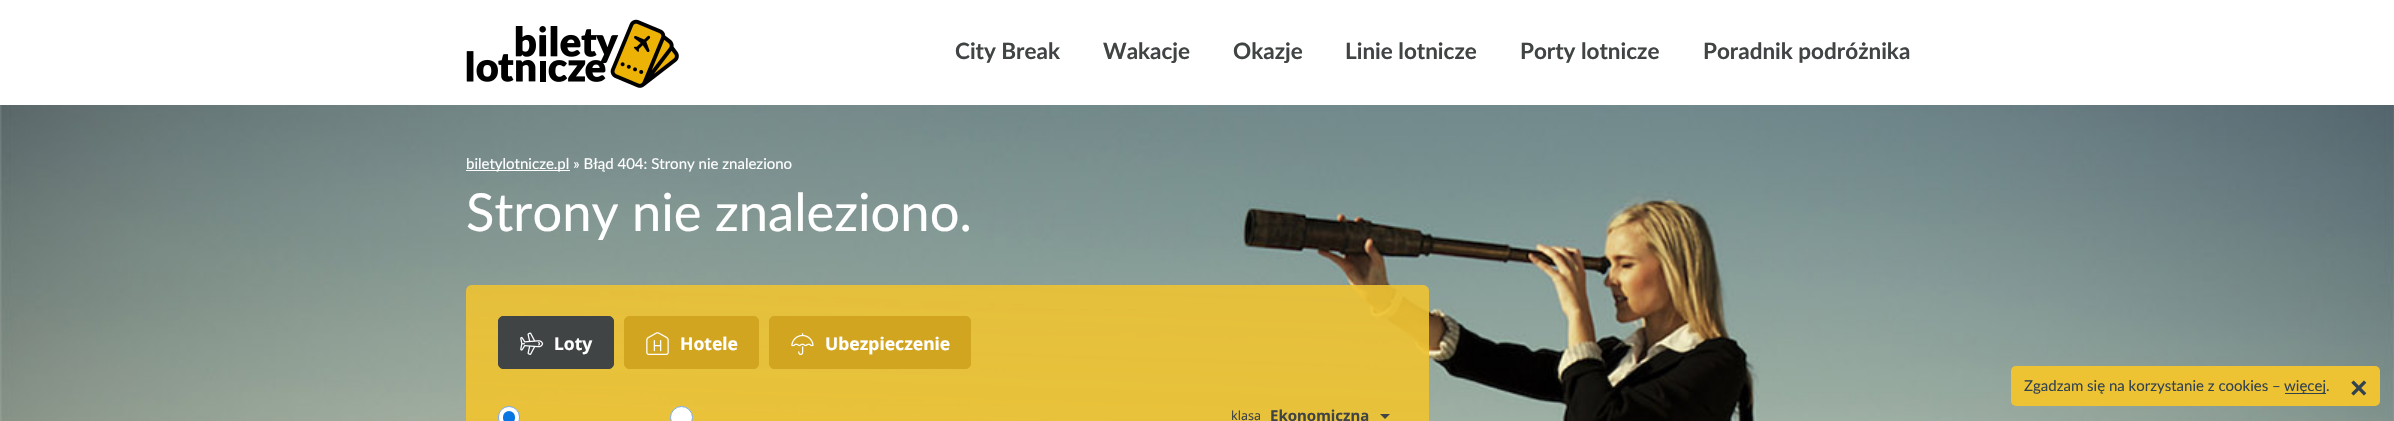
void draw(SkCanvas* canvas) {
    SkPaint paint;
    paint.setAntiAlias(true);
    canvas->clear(0xFFFFFFFF);
    canvas->drawImageRect(SkImages::DeferredFromEncodedData(SkData::MakeFromFileName("img1.png")), SkRect::MakeXYWH(466, 19, 213, 69), SkSamplingOptions());
    SkFont font1(fontMgr->matchFamilyStyle("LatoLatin", SkFontStyle::Bold()), 22.5f);
    font1.setSubpixel(true);
    paint.setColor(0xFF414445);
    canvas->drawString("City Break", 955, 59, font1, paint);
    canvas->drawString("Wakacje", 1103, 59, font1, paint);
    canvas->drawString("Okazje", 1233, 59, font1, paint);
    canvas->drawString("Linie lotnicze", 1345, 59, font1, paint);
    canvas->drawString("Porty lotnicze", 1520, 59, font1, paint);
    canvas->drawString("Poradnik podróżnika", 1703, 59, font1, paint);
    canvas->drawImageRect(SkImages::DeferredFromEncodedData(SkData::MakeFromFileName("img2.png")), SkRect::MakeXYWH(0, 105, 2394, 316), SkSamplingOptions());
    paint.setColor(0xFFFFFFFF);
    canvas->drawRect(SkRect::MakeXYWH(466, 170, 104, 1), paint);
    SkFont font2(fontMgr->matchFamilyStyle("LatoLatin", SkFontStyle::Normal()), 15);
    font2.setSubpixel(true);
    canvas->drawString("biletylotnicze.pl » Błąd 404: Strony nie znaleziono", 466, 169, font2, paint);
    SkFont font3(fontMgr->matchFamilyStyle("LatoLatin", SkFontStyle::Normal()), 52.5f);
    font3.setSubpixel(true);
    canvas->drawString("Strony nie znaleziono.", 466, 231, font3, paint);
    paint.setColor(0xFF414445);
    canvas->drawRoundRect(SkRect::MakeXYWH(498.5f, 316.5f, 115, 52), 4.5f, 4.5f, paint);
    paint.setStyle(SkPaint::kStroke_Style);
    paint.setStrokeWidth(1);
    canvas->drawRoundRect(SkRect::MakeXYWH(498.5f, 316.5f, 115, 52), 4.5f, 4.5f, paint);
    canvas->drawImageRect(SkImages::DeferredFromEncodedData(SkData::MakeFromFileName("img3.png")), SkRect::MakeXYWH(520, 332, 24, 23), SkSamplingOptions());
    SkFont font4(fontMgr->matchFamilyStyle("Noto Sans", SkFontStyle::Bold()), 17.5f);
    font4.setSubpixel(true);
    paint.setStyle(SkPaint::kFill_Style);
    paint.setColor(0xFFFFFFFF);
    canvas->drawString("Loty", 554, 350, font4, paint);
    paint.setColor(0xFFD1A520);
    canvas->drawRoundRect(SkRect::MakeXYWH(624.5f, 316.5f, 134, 52), 4.5f, 4.5f, paint);
    paint.setStyle(SkPaint::kStroke_Style);
    canvas->drawRoundRect(SkRect::MakeXYWH(624.5f, 316.5f, 134, 52), 4.5f, 4.5f, paint);
    canvas->drawImageRect(SkImages::DeferredFromEncodedData(SkData::MakeFromFileName("img4.png")), SkRect::MakeXYWH(646, 332, 23, 23), SkSamplingOptions());
    paint.setStyle(SkPaint::kFill_Style);
    paint.setColor(0xFFFFFFFF);
    canvas->drawString("Hotele", 680, 350, font4, paint);
    paint.setColor(0xFFD1A520);
    canvas->drawRoundRect(SkRect::MakeXYWH(769.5f, 316.5f, 201, 52), 4.5f, 4.5f, paint);
    paint.setStyle(SkPaint::kStroke_Style);
    canvas->drawRoundRect(SkRect::MakeXYWH(769.5f, 316.5f, 201, 52), 4.5f, 4.5f, paint);
    canvas->drawImageRect(SkImages::DeferredFromEncodedData(SkData::MakeFromFileName("img5.png")), SkRect::MakeXYWH(791, 333, 23, 22), SkSamplingOptions());
    paint.setStyle(SkPaint::kFill_Style);
    paint.setColor(0xFFFFFFFF);
    canvas->drawString("Ubezpieczenie", 825, 350, font4, paint);
    canvas->drawRoundRect(SkRect::MakeXYWH(498.5f, 406.5f, 21, 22), 10.5f, 10.5f, paint);
    paint.setStyle(SkPaint::kStroke_Style);
    paint.setColor(0xFF7AABEB);
    canvas->drawRoundRect(SkRect::MakeXYWH(498.5f, 406.5f, 21, 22), 10.5f, 10.5f, paint);
    paint.setStyle(SkPaint::kFill_Style);
    paint.setColor(0xFF0775E2);
    canvas->drawRoundRect(SkRect::MakeXYWH(503, 411, 12, 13), 6, 6, paint);
    paint.setColor(0xFFFFFFFF);
    canvas->drawCircle(681.5f, 417.5f, 11, paint);
    paint.setStyle(SkPaint::kStroke_Style);
    paint.setColor(0xFF7AABEB);
    canvas->drawCircle(681.5f, 417.5f, 11, paint);
    SkFont font5(fontMgr->matchFamilyStyle("Noto Sans", SkFontStyle::Normal()), 12.5f);
    font5.setSubpixel(true);
    paint.setStyle(SkPaint::kFill_Style);
    paint.setColor(0xFF414445);
    canvas->drawString("klasa", 1231, 420, font5, paint);
    SkFont font6(fontMgr->matchFamilyStyle("Noto Sans", SkFontStyle::Bold()), 15);
    font6.setSubpixel(true);
    canvas->drawString("Ekonomiczna", 1270, 421, font6, paint);
    canvas->drawPath(SkPathBuilder().moveTo(1380, 414).lineTo(1390, 414).lineTo(1385, 419).close().detach(), paint);
    paint.setColor(0xFFEEC333);
    canvas->drawRoundRect(SkRect::MakeXYWH(2011, 366, 369, 40), 5, 5, paint);
    paint.setColor(0xFF32424F);
    canvas->drawString("Zgadzam się na korzystanie z cookies –", 2024, 391, font2, paint);
    canvas->drawRect(SkRect::MakeXYWH(2285, 393, 41, 1), paint);
    canvas->drawString("więcej.", 2284, 391, font2, paint);
    SkFont font7(fontMgr->matchFamilyStyle("Liberation Sans", SkFontStyle::Bold()), 30);
    font7.setSubpixel(true);
    canvas->drawString("×", 2350, 398, font7, paint);
}
